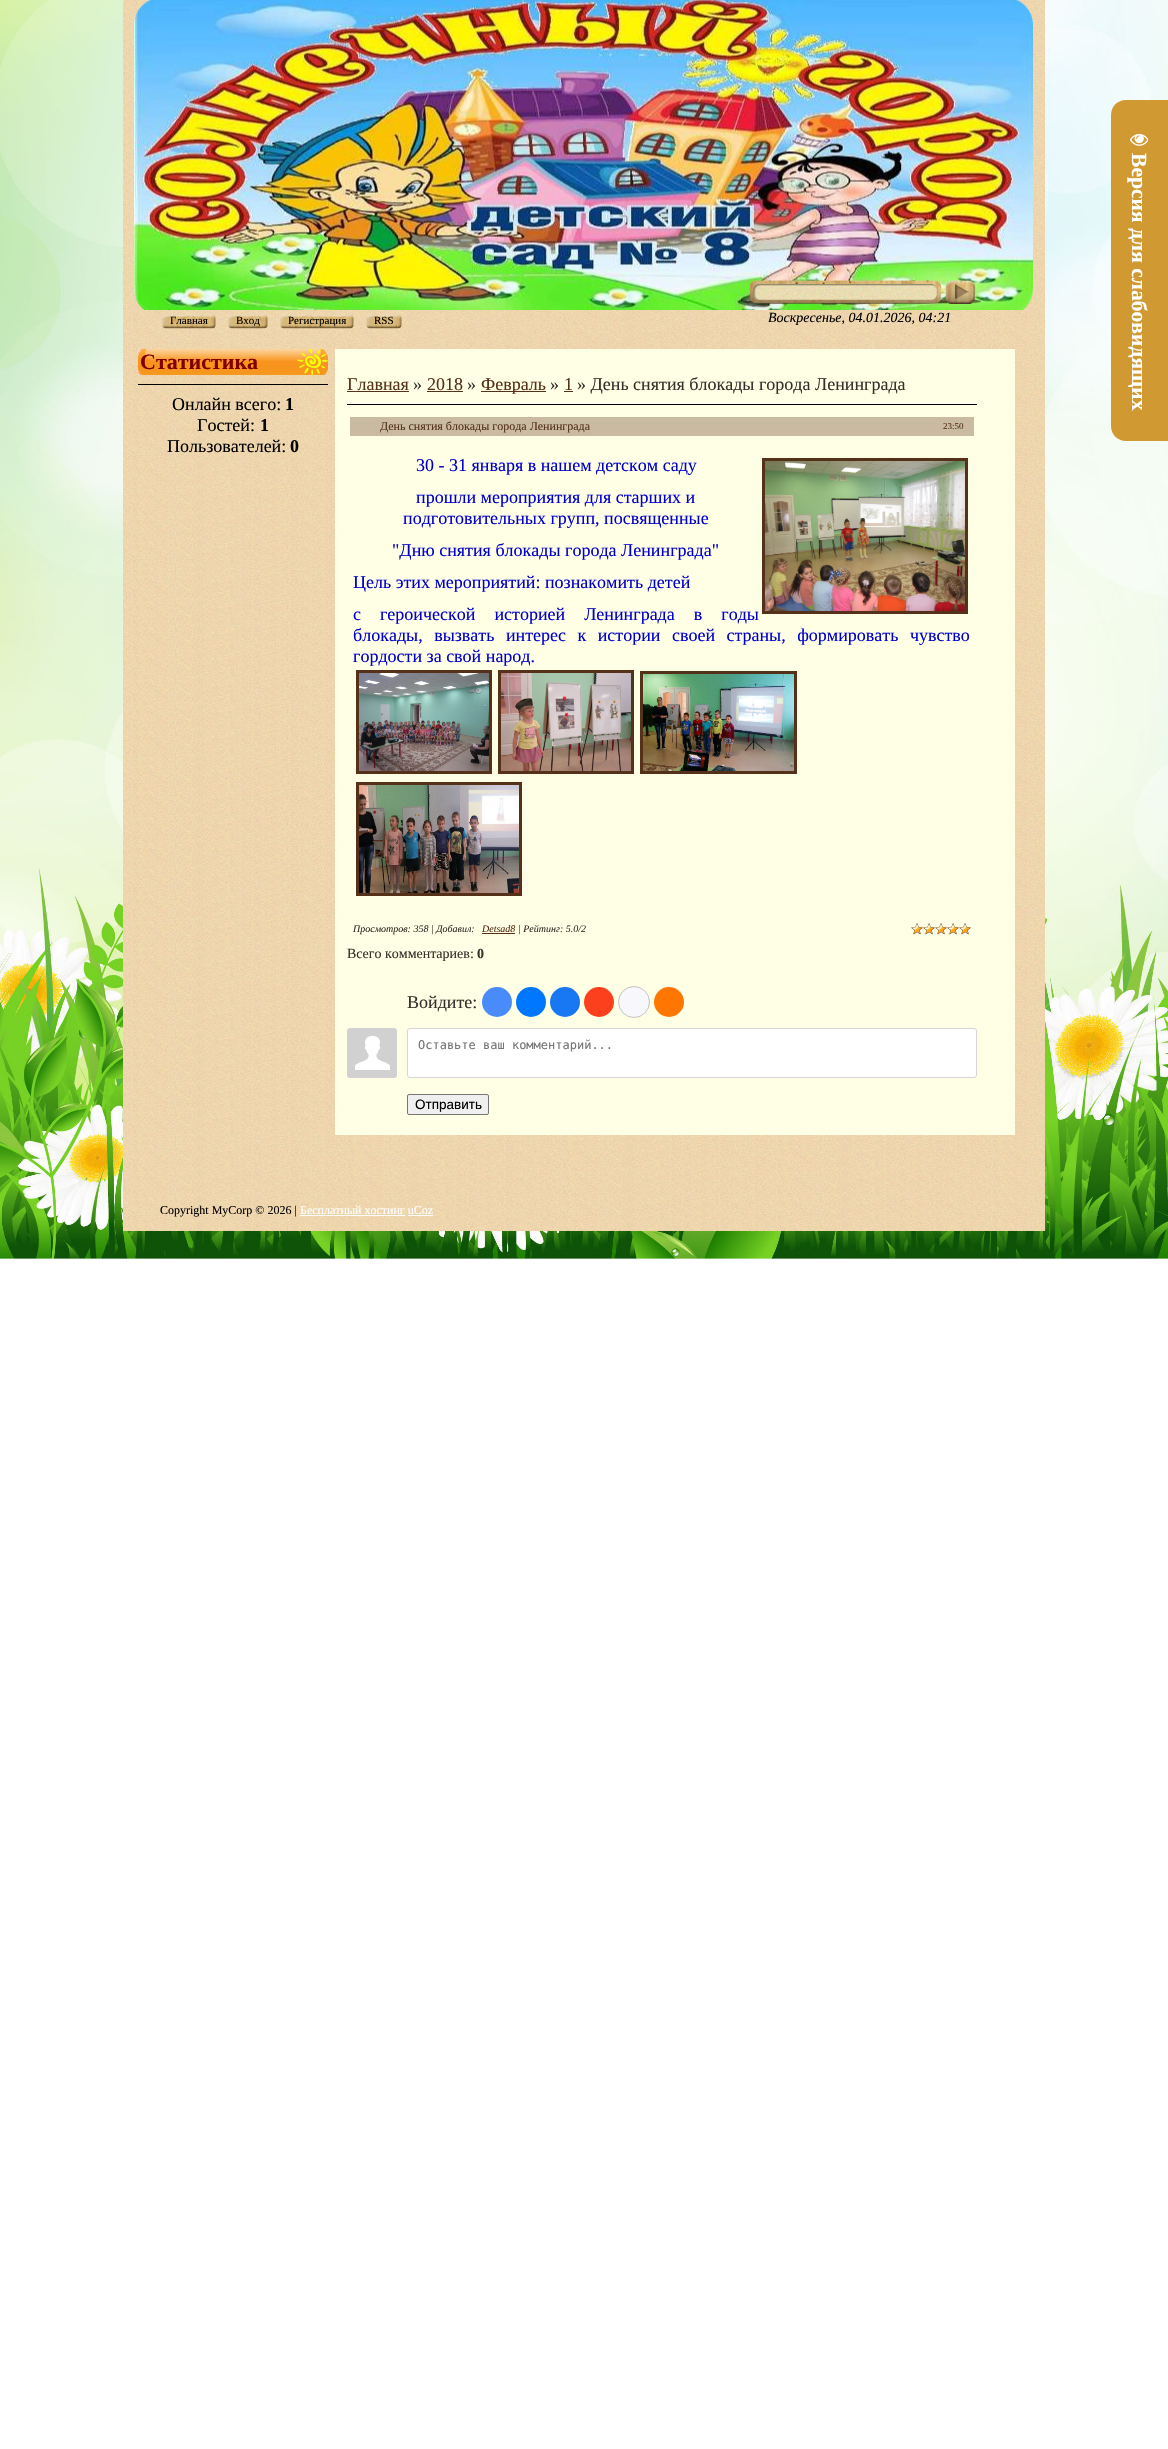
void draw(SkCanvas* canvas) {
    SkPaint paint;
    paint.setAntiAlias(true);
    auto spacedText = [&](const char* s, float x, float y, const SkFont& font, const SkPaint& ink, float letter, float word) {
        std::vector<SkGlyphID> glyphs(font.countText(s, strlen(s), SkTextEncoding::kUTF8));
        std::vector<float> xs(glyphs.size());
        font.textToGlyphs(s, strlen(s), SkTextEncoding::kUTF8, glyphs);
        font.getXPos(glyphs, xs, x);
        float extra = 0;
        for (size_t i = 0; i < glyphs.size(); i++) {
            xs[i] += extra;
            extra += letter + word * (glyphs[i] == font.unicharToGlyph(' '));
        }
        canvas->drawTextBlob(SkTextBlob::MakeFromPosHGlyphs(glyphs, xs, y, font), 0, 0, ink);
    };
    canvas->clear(0xFFFFFFFF);
    canvas->drawImageRect(SkImages::DeferredFromEncodedData(SkData::MakeFromFileName("img1.png")), SkRect::MakeXYWH(0, 0, 1168, 1259), SkSamplingOptions());
    paint.setColor(0xFFD19932);
    canvas->drawPath(SkPathBuilder().moveTo(1126, 100).lineTo(1168, 100).lineTo(1168, 441).lineTo(1126, 441).cubicTo(1117.5f, 441, 1111, 434.5f, 1111, 426).lineTo(1111, 115).cubicTo(1111, 106.5f, 1117.5f, 100, 1126, 100).close().detach(), paint);
    canvas->drawImageRect(SkImages::DeferredFromEncodedData(SkData::MakeFromFileName("img2.png")), SkRect::MakeXYWH(1130, 133, 18, 13), SkSamplingOptions());
    SkFont font1(fontMgr->matchFamilyStyle("Liberation Serif", SkFontStyle::Bold()), 21.6f);
    font1.setSubpixel(true);
    paint.setColor(0xFFFFFFFF);
    canvas->save();
    canvas->rotate(90, 1132, 153);
    canvas->drawString("Версия для слабовидящих", 1132, 153, font1, paint);
    canvas->restore();
    canvas->drawImageRect(SkImages::DeferredFromEncodedData(SkData::MakeFromFileName("img3.png")), SkRect::MakeXYWH(123, 0, 922, 1231), SkSamplingOptions());
    canvas->drawImageRect(SkImages::DeferredFromEncodedData(SkData::MakeFromFileName("img4.png")), SkRect::MakeXYWH(134, 17, 899, 293), SkSamplingOptions());
    canvas->drawImageRect(SkImages::DeferredFromEncodedData(SkData::MakeFromFileName("img5.png")), SkRect::MakeXYWH(134, 0, 899, 310), SkSamplingOptions());
    canvas->drawImageRect(SkImages::DeferredFromEncodedData(SkData::MakeFromFileName("img6.png")), SkRect::MakeXYWH(743, 280, 238, 24), SkSamplingOptions());
    canvas->drawImageRect(SkImages::DeferredFromEncodedData(SkData::MakeFromFileName("img7.png")), SkRect::MakeXYWH(162, 315, 5, 14), SkSamplingOptions());
    canvas->drawImageRect(SkImages::DeferredFromEncodedData(SkData::MakeFromFileName("img8.png")), SkRect::MakeXYWH(167, 315, 44, 14), SkSamplingOptions());
    SkFont font2(fontMgr->matchFamilyStyle("Liberation Serif", SkFontStyle::Normal()), 11);
    font2.setSubpixel(true);
    paint.setColor(0xFF000000);
    canvas->drawString("Главная", 170, 324, font2, paint);
    canvas->drawImageRect(SkImages::DeferredFromEncodedData(SkData::MakeFromFileName("img9.png")), SkRect::MakeXYWH(211, 315, 5, 14), SkSamplingOptions());
    canvas->drawImageRect(SkImages::DeferredFromEncodedData(SkData::MakeFromFileName("img10.png")), SkRect::MakeXYWH(228, 315, 5, 14), SkSamplingOptions());
    canvas->drawImageRect(SkImages::DeferredFromEncodedData(SkData::MakeFromFileName("img11.png")), SkRect::MakeXYWH(233, 315, 30, 14), SkSamplingOptions());
    canvas->drawString("Вход", 236, 324, font2, paint);
    canvas->drawImageRect(SkImages::DeferredFromEncodedData(SkData::MakeFromFileName("img12.png")), SkRect::MakeXYWH(263, 315, 5, 14), SkSamplingOptions());
    canvas->drawImageRect(SkImages::DeferredFromEncodedData(SkData::MakeFromFileName("img13.png")), SkRect::MakeXYWH(280, 315, 5, 14), SkSamplingOptions());
    canvas->drawImageRect(SkImages::DeferredFromEncodedData(SkData::MakeFromFileName("img14.png")), SkRect::MakeXYWH(285, 315, 64, 14), SkSamplingOptions());
    canvas->drawString("Регистрация", 288, 324, font2, paint);
    canvas->drawImageRect(SkImages::DeferredFromEncodedData(SkData::MakeFromFileName("img15.png")), SkRect::MakeXYWH(349, 315, 5, 14), SkSamplingOptions());
    canvas->drawImageRect(SkImages::DeferredFromEncodedData(SkData::MakeFromFileName("img16.png")), SkRect::MakeXYWH(366, 315, 5, 14), SkSamplingOptions());
    canvas->drawImageRect(SkImages::DeferredFromEncodedData(SkData::MakeFromFileName("img17.png")), SkRect::MakeXYWH(371, 315, 26, 14), SkSamplingOptions());
    canvas->drawString("RSS", 374, 324, font2, paint);
    canvas->drawImageRect(SkImages::DeferredFromEncodedData(SkData::MakeFromFileName("img18.png")), SkRect::MakeXYWH(397, 315, 5, 14), SkSamplingOptions());
    SkFont font3(fontMgr->matchFamilyStyle("Liberation Serif", SkFontStyle::Italic()), 14);
    font3.setSubpixel(true);
    canvas->drawString("Воскресенье, 04.01.2026, 04:21", 768, 322, font3, paint);
    paint.setColor(0xFFFFFFE5);
    canvas->drawRect(SkRect::MakeXYWH(335, 349, 680, 786), paint);
    canvas->drawImageRect(SkImages::DeferredFromEncodedData(SkData::MakeFromFileName("img19.png")), SkRect::MakeXYWH(138, 349, 190, 26), SkSamplingOptions());
    SkFont font4(fontMgr->matchFamilyStyle("Liberation Serif", SkFontStyle::Bold()), 22);
    font4.setSubpixel(true);
    paint.setColor(0xFF800000);
    canvas->drawString("Статистика", 140, 369, font4, paint);
    paint.setColor(0xFF000000);
    canvas->drawRect(SkRect::MakeXYWH(138, 384, 190, 1), paint);
    SkFont font5(fontMgr->matchFamilyStyle("Liberation Serif", SkFontStyle::Normal()), 18);
    font5.setSubpixel(true);
    canvas->drawString("Онлайн всего:", 172, 410, font5, paint);
    SkFont font6(fontMgr->matchFamilyStyle("Liberation Serif", SkFontStyle::Bold()), 18);
    font6.setSubpixel(true);
    canvas->drawString("1", 285, 410, font6, paint);
    canvas->drawString("Гостей:", 197, 431, font5, paint);
    canvas->drawString("1", 260, 431, font6, paint);
    canvas->drawString("Пользователей:", 167, 452, font5, paint);
    canvas->drawString("0", 290, 452, font6, paint);
    paint.setColor(0xFF55311A);
    canvas->drawString("Главная", 347, 390, font5, paint);
    canvas->drawRect(SkRect::MakeXYWH(347, 391, 62, 1), paint);
    paint.setColor(0xFF352F2B);
    canvas->drawString("»", 413, 390, font5, paint);
    paint.setColor(0xFF55311A);
    canvas->drawString("2018", 427, 390, font5, paint);
    canvas->drawRect(SkRect::MakeXYWH(427, 391, 36, 1), paint);
    paint.setColor(0xFF352F2B);
    canvas->drawString("»", 467, 390, font5, paint);
    paint.setColor(0xFF55311A);
    canvas->drawRect(SkRect::MakeXYWH(481, 391, 65, 1), paint);
    canvas->drawString("Февраль", 481, 390, font5, paint);
    paint.setColor(0xFF352F2B);
    canvas->drawString("»", 550, 390, font5, paint);
    paint.setColor(0xFF55311A);
    canvas->drawString("1", 564, 390, font5, paint);
    canvas->drawRect(SkRect::MakeXYWH(564, 391, 9, 1), paint);
    paint.setColor(0xFF352F2B);
    canvas->drawString("» День снятия блокады города Ленинграда", 577, 390, font5, paint);
    paint.setColor(0xFF000000);
    canvas->drawRect(SkRect::MakeXYWH(347, 404, 630, 1), paint);
    paint.setColor(0xFFC9BAA1);
    canvas->drawRect(SkRect::MakeXYWH(350, 417, 624, 19), paint);
    SkFont font7(fontMgr->matchFamilyStyle("Liberation Serif", SkFontStyle::Normal()), 12);
    font7.setSubpixel(true);
    paint.setColor(0xFF55311A);
    canvas->drawString("День снятия блокады города Ленинграда", 380, 430, font7, paint);
    SkFont font8(fontMgr->matchFamilyStyle("Liberation Serif", SkFontStyle::Normal()), 9);
    font8.setSubpixel(true);
    canvas->drawString("23:50", 943, 429, font8, paint);
    paint.setColor(0xFF0000CD);
    canvas->drawString("30 - 31 января в нашем детском саду", 416, 471, font5, paint);
    paint.setStyle(SkPaint::kStroke_Style);
    paint.setStrokeWidth(3);
    paint.setColor(0xFF55311A);
    canvas->drawRect(SkRect::MakeXYWH(763.5f, 459.5f, 203, 153), paint);
    canvas->drawImageRect(SkImages::DeferredFromEncodedData(SkData::MakeFromFileName("img20.png")), SkRect::MakeXYWH(765, 461, 200, 150), SkSamplingOptions());
    paint.setStyle(SkPaint::kFill_Style);
    paint.setColor(0xFF0000CD);
    canvas->drawString("прошли мероприятия для старших и", 416, 503, font5, paint);
    canvas->drawString("подготовительных групп, посвященные", 403, 524, font5, paint);
    canvas->drawString("\"Дню снятия блокады города Ленинграда\"", 392, 556, font5, paint);
    canvas->drawString("Цель этих мероприятий: познакомить детей", 353, 588, font5, paint);
    spacedText("с героической историей Ленинграда в годы", 353, 620, font5, paint, 0, 14.5f);
    spacedText("блокады, вызвать интерес к истории своей страны, формировать чувство", 353, 641, font5, paint, 0, 7);
    canvas->drawString("гордости за свой народ.", 353, 662, font5, paint);
    paint.setStyle(SkPaint::kStroke_Style);
    paint.setColor(0xFF55311A);
    canvas->drawRect(SkRect::MakeXYWH(357.5f, 671.5f, 133, 101), paint);
    canvas->drawRect(SkRect::MakeXYWH(499.5f, 671.5f, 133, 101), paint);
    canvas->drawRect(SkRect::MakeXYWH(641.5f, 672.5f, 154, 100), paint);
    canvas->drawImageRect(SkImages::DeferredFromEncodedData(SkData::MakeFromFileName("img21.png")), SkRect::MakeXYWH(359, 673, 130, 98), SkSamplingOptions());
    canvas->drawImageRect(SkImages::DeferredFromEncodedData(SkData::MakeFromFileName("img22.png")), SkRect::MakeXYWH(501, 673, 130, 98), SkSamplingOptions());
    canvas->drawImageRect(SkImages::DeferredFromEncodedData(SkData::MakeFromFileName("img23.png")), SkRect::MakeXYWH(643, 674, 151, 97), SkSamplingOptions());
    canvas->drawRect(SkRect::MakeXYWH(357.5f, 783.5f, 163, 111), paint);
    canvas->drawImageRect(SkImages::DeferredFromEncodedData(SkData::MakeFromFileName("img24.png")), SkRect::MakeXYWH(359, 785, 160, 108), SkSamplingOptions());
    SkFont font9(fontMgr->matchFamilyStyle("Liberation Serif", SkFontStyle::Italic()), 10);
    font9.setSubpixel(true);
    paint.setStyle(SkPaint::kFill_Style);
    paint.setColor(0xFF352F2B);
    canvas->drawString("Просмотров: 358 | Добавил:", 353, 932, font9, paint);
    paint.setColor(0xFF55311A);
    canvas->drawString("Detsad8", 482, 932, font9, paint);
    canvas->drawRect(SkRect::MakeXYWH(482, 933, 33, 1), paint);
    paint.setColor(0xFF352F2B);
    canvas->drawString("| Рейтинг: 5.0/2", 518, 932, font9, paint);
    canvas->drawImageRect(SkImages::DeferredFromEncodedData(SkData::MakeFromFileName("img25.png")), SkRect::MakeXYWH(911, 923, 60, 12), SkSamplingOptions());
    canvas->drawImageRect(SkImages::DeferredFromEncodedData(SkData::MakeFromFileName("img26.png")), SkRect::MakeXYWH(911, 923, 60, 12), SkSamplingOptions());
    SkFont font10(fontMgr->matchFamilyStyle("Liberation Serif", SkFontStyle::Normal()), 14);
    font10.setSubpixel(true);
    canvas->drawString("Всего комментариев:", 347, 958, font10, paint);
    SkFont font11(fontMgr->matchFamilyStyle("Liberation Serif", SkFontStyle::Bold()), 14);
    font11.setSubpixel(true);
    canvas->drawString("0", 477, 958, font11, paint);
    canvas->drawString("Войдите:", 407, 1008, font5, paint);
    paint.setColor(0xFF498BFA);
    canvas->drawCircle(497, 1002, 15, paint);
    paint.setColor(0xFF0077FF);
    canvas->drawCircle(531, 1002, 15, paint);
    paint.setColor(0xFF1877F2);
    canvas->drawCircle(565, 1002, 15, paint);
    paint.setColor(0xFFFC3F1D);
    canvas->drawCircle(599, 1002, 15, paint);
    paint.setColor(0xFFF8F8FC);
    canvas->drawCircle(634, 1002, 15.5f, paint);
    paint.setStyle(SkPaint::kStroke_Style);
    paint.setStrokeWidth(1);
    paint.setColor(0xFFC4C4C4);
    canvas->drawCircle(634, 1002, 15.5f, paint);
    paint.setStyle(SkPaint::kFill_Style);
    paint.setColor(0xFFFF7700);
    canvas->drawCircle(669, 1002, 15, paint);
    canvas->drawImageRect(SkImages::DeferredFromEncodedData(SkData::MakeFromFileName("img27.png")), SkRect::MakeXYWH(347, 1028, 50, 50), SkSamplingOptions());
    paint.setColor(0xFFFFFFFF);
    canvas->drawRoundRect(SkRect::MakeXYWH(407.5f, 1028.5f, 569, 49), 2.5f, 2.5f, paint);
    paint.setStyle(SkPaint::kStroke_Style);
    paint.setColor(0xFFD6D6D6);
    canvas->drawRoundRect(SkRect::MakeXYWH(407.5f, 1028.5f, 569, 49), 2.5f, 2.5f, paint);
    SkFont font12(fontMgr->matchFamilyStyle("DejaVu Sans Mono", SkFontStyle::Normal()), 12);
    font12.setSubpixel(true);
    paint.setStyle(SkPaint::kFill_Style);
    paint.setColor(0xFF757575);
    canvas->drawString("Оставьте ваш комментарий...", 418, 1049, font12, paint);
    paint.setColor(0xFFEFEFEF);
    canvas->drawRoundRect(SkRect::MakeXYWH(407.5f, 1094.5f, 81, 20), 1.5f, 1.5f, paint);
    paint.setStyle(SkPaint::kStroke_Style);
    paint.setColor(0xFF767676);
    canvas->drawRoundRect(SkRect::MakeXYWH(407.5f, 1094.5f, 81, 20), 1.5f, 1.5f, paint);
    SkFont font13(fontMgr->matchFamilyStyle("Liberation Sans", SkFontStyle::Normal()), 13.5f);
    font13.setSubpixel(true);
    paint.setStyle(SkPaint::kFill_Style);
    paint.setColor(0xFF000000);
    canvas->drawString("Отправить", 415, 1109, font13, paint);
    canvas->drawString("Copyright MyCorp © 2026 |", 160, 1214, font7, paint);
    paint.setColor(0xFFFFFFFF);
    canvas->drawString("Бесплатный хостинг uCoz", 300, 1214, font7, paint);
    canvas->drawRect(SkRect::MakeXYWH(300, 1215, 105, 1), paint);
    canvas->drawRect(SkRect::MakeXYWH(408, 1215, 25, 1), paint);
}
